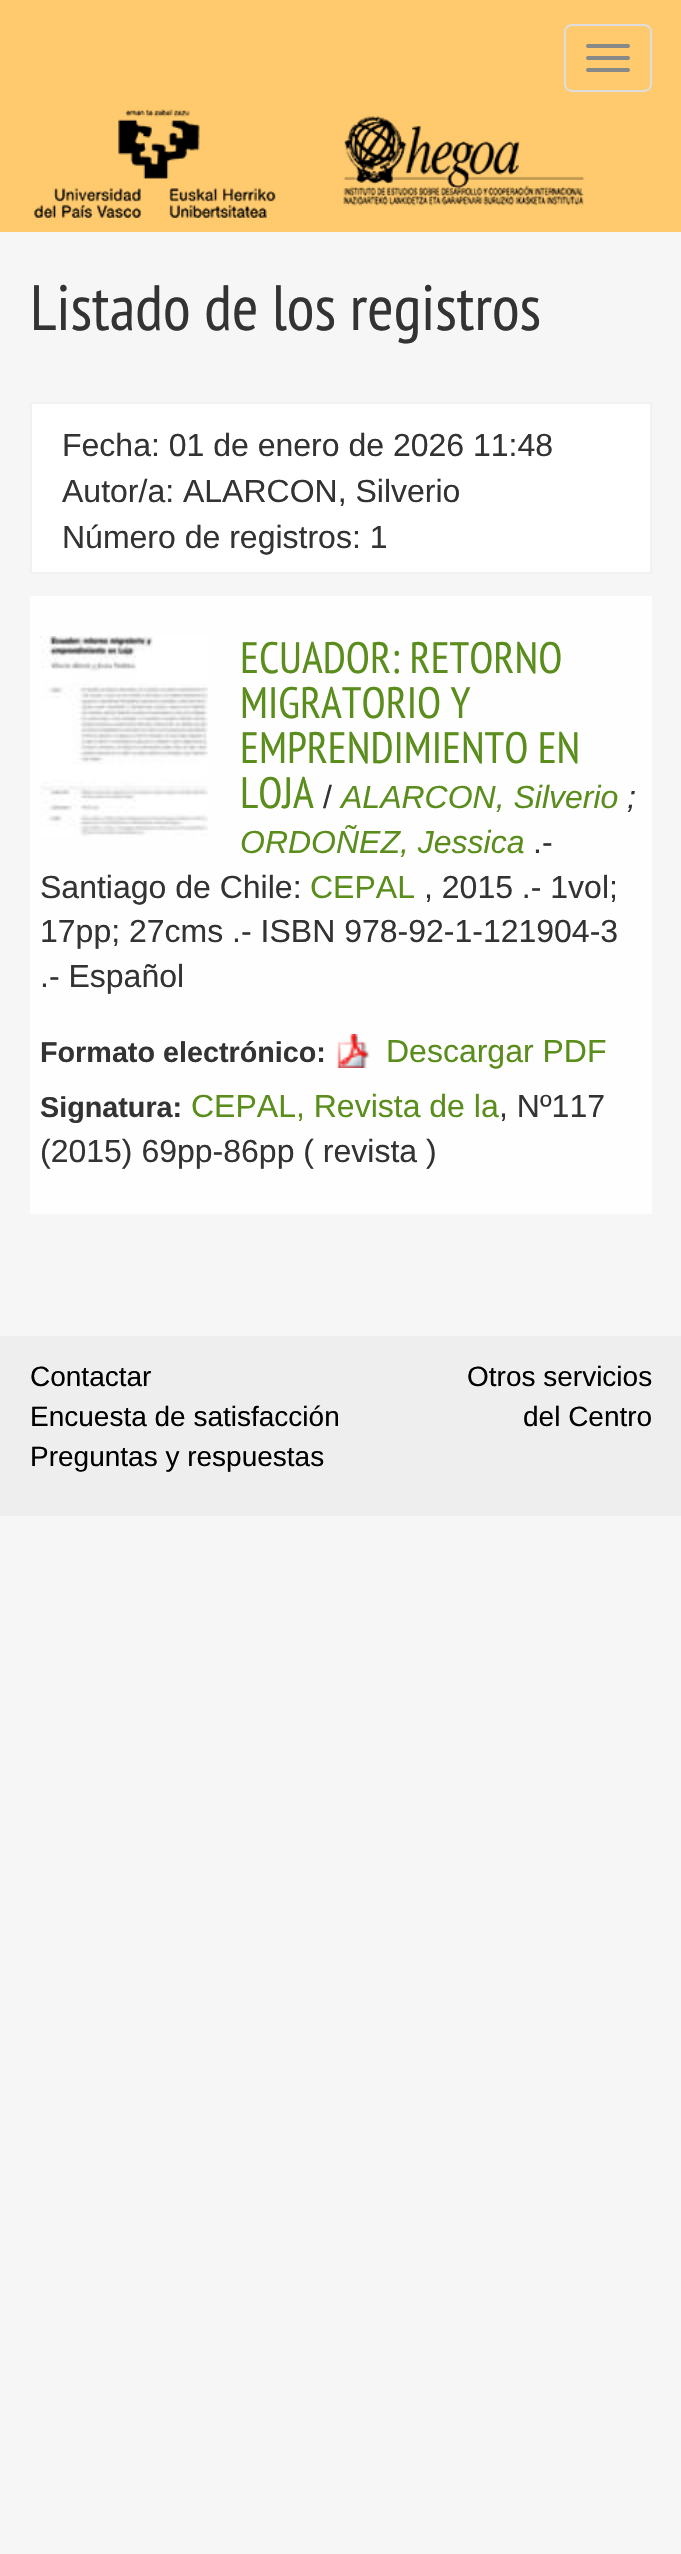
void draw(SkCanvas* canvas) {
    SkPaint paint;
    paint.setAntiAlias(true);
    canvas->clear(0xFFF6F6F6);
    paint.setColor(0xFFFFCA6D);
    canvas->drawRect(SkRect::MakeXYWH(0, 0, 681, 232), paint);
    paint.setStyle(SkPaint::kStroke_Style);
    paint.setStrokeWidth(2);
    paint.setColor(0xFFDDDDDD);
    canvas->drawRoundRect(SkRect::MakeXYWH(565, 25, 86, 66), 7, 7, paint);
    paint.setStyle(SkPaint::kFill_Style);
    paint.setColor(0xFF888888);
    canvas->drawRoundRect(SkRect::MakeXYWH(586, 44, 44, 4), 2, 2, paint);
    canvas->drawRoundRect(SkRect::MakeXYWH(586, 56, 44, 4), 2, 2, paint);
    canvas->drawRoundRect(SkRect::MakeXYWH(586, 68, 44, 4), 2, 2, paint);
    canvas->drawImageRect(SkImages::DeferredFromEncodedData(SkData::MakeFromFileName("img1.png")), SkRect::MakeXYWH(34, 109, 551, 109), SkSamplingOptions());
    SkFont font1(fontMgr->matchFamilyStyle("PT Sans Narrow", SkFontStyle::Normal()), 64);
    font1.setSubpixel(true);
    paint.setColor(0xFF333333);
    canvas->drawString("Listado de los registros", 30, 330, font1, paint);
    paint.setColor(0xFFFFFFFF);
    canvas->drawRect(SkRect::MakeXYWH(31, 403, 620, 170), paint);
    paint.setStyle(SkPaint::kStroke_Style);
    paint.setColor(0xFFF1F1F1);
    canvas->drawRect(SkRect::MakeXYWH(31, 403, 620, 170), paint);
    SkFont font2(fontMgr->matchFamilyStyle("Liberation Sans", SkFontStyle::Normal()), 32);
    font2.setSubpixel(true);
    paint.setStyle(SkPaint::kFill_Style);
    paint.setColor(0xFF333333);
    canvas->drawString("Fecha: 01 de enero de 2026 11:48", 62, 456, font2, paint);
    canvas->drawString("Autor/a: ALARCON, Silverio", 62, 502, font2, paint);
    canvas->drawString("Número de registros: 1", 62, 548, font2, paint);
    paint.setColor(0xFFFEFEFE);
    canvas->drawRect(SkRect::MakeXYWH(30, 596, 622, 618), paint);
    canvas->drawImageRect(SkImages::DeferredFromEncodedData(SkData::MakeFromFileName("img2.png")), SkRect::MakeXYWH(40, 636, 168, 200), SkSamplingOptions());
    SkFont font3(fontMgr->matchFamilyStyle("PT Sans Narrow", SkFontStyle::Normal()), 44);
    font3.setSubpixel(true);
    paint.setColor(0xFF5A8D1B);
    canvas->drawString("ECUADOR: RETORNO", 240, 673, font3, paint);
    canvas->drawString("MIGRATORIO Y", 240, 718, font3, paint);
    canvas->drawString("EMPRENDIMIENTO EN", 240, 763, font3, paint);
    canvas->drawString("LOJA", 240, 808, font3, paint);
    paint.setColor(0xFF333333);
    canvas->drawString("/", 323, 808, font2, paint);
    SkFont font4(fontMgr->matchFamilyStyle("Liberation Sans", SkFontStyle::Italic()), 32);
    font4.setSubpixel(true);
    paint.setColor(0xFF5A8D1B);
    canvas->drawString("ALARCON, Silverio", 341, 808, font4, paint);
    paint.setColor(0xFF333333);
    canvas->drawString(";", 627, 808, font4, paint);
    paint.setColor(0xFF5A8D1B);
    canvas->drawString("ORDOÑEZ, Jessica", 240, 853, font4, paint);
    paint.setColor(0xFF333333);
    canvas->drawString(".-", 533, 853, font2, paint);
    canvas->drawString("Santiago de Chile:", 40, 898, font2, paint);
    paint.setColor(0xFF5A8D1B);
    canvas->drawString("CEPAL", 310, 898, font2, paint);
    paint.setColor(0xFF333333);
    canvas->drawString(", 2015 .- 1vol;", 424, 898, font2, paint);
    canvas->drawString("17pp; 27cms .- ISBN 978-92-1-121904-3", 40, 942, font2, paint);
    canvas->drawString(".- Español", 40, 987, font2, paint);
    SkFont font5(fontMgr->matchFamilyStyle("Liberation Sans", SkFontStyle::Bold()), 28.75f);
    font5.setSubpixel(true);
    canvas->drawString("Formato electrónico:", 40, 1062, font5, paint);
    canvas->drawImageRect(SkImages::DeferredFromEncodedData(SkData::MakeFromFileName("img3.png")), SkRect::MakeXYWH(337, 1034, 33, 34), SkSamplingOptions());
    paint.setColor(0xFF5A8D1B);
    canvas->drawString("Descargar PDF", 386, 1062, font2, paint);
    paint.setColor(0xFF333333);
    canvas->drawString("Signatura:", 40, 1117, font5, paint);
    paint.setColor(0xFF5A8D1B);
    canvas->drawString("CEPAL, Revista de la", 191, 1117, font2, paint);
    paint.setColor(0xFF333333);
    canvas->drawString(", Nº117", 499, 1117, font2, paint);
    canvas->drawString("(2015) 69pp-86pp ( revista )", 40, 1162, font2, paint);
    paint.setColor(0xFFEEEEEE);
    canvas->drawRect(SkRect::MakeXYWH(0, 1336, 681, 180), paint);
    SkFont font6(fontMgr->matchFamilyStyle("Liberation Sans", SkFontStyle::Normal()), 28);
    font6.setSubpixel(true);
    paint.setColor(0xFF000000);
    canvas->drawString("Contactar", 30, 1386, font6, paint);
    canvas->drawString("Encuesta de satisfacción", 30, 1426, font6, paint);
    canvas->drawString("Preguntas y respuestas", 30, 1466, font6, paint);
    canvas->drawString("Otros servicios", 467, 1386, font6, paint);
    canvas->drawString("del Centro", 523, 1426, font6, paint);
}
